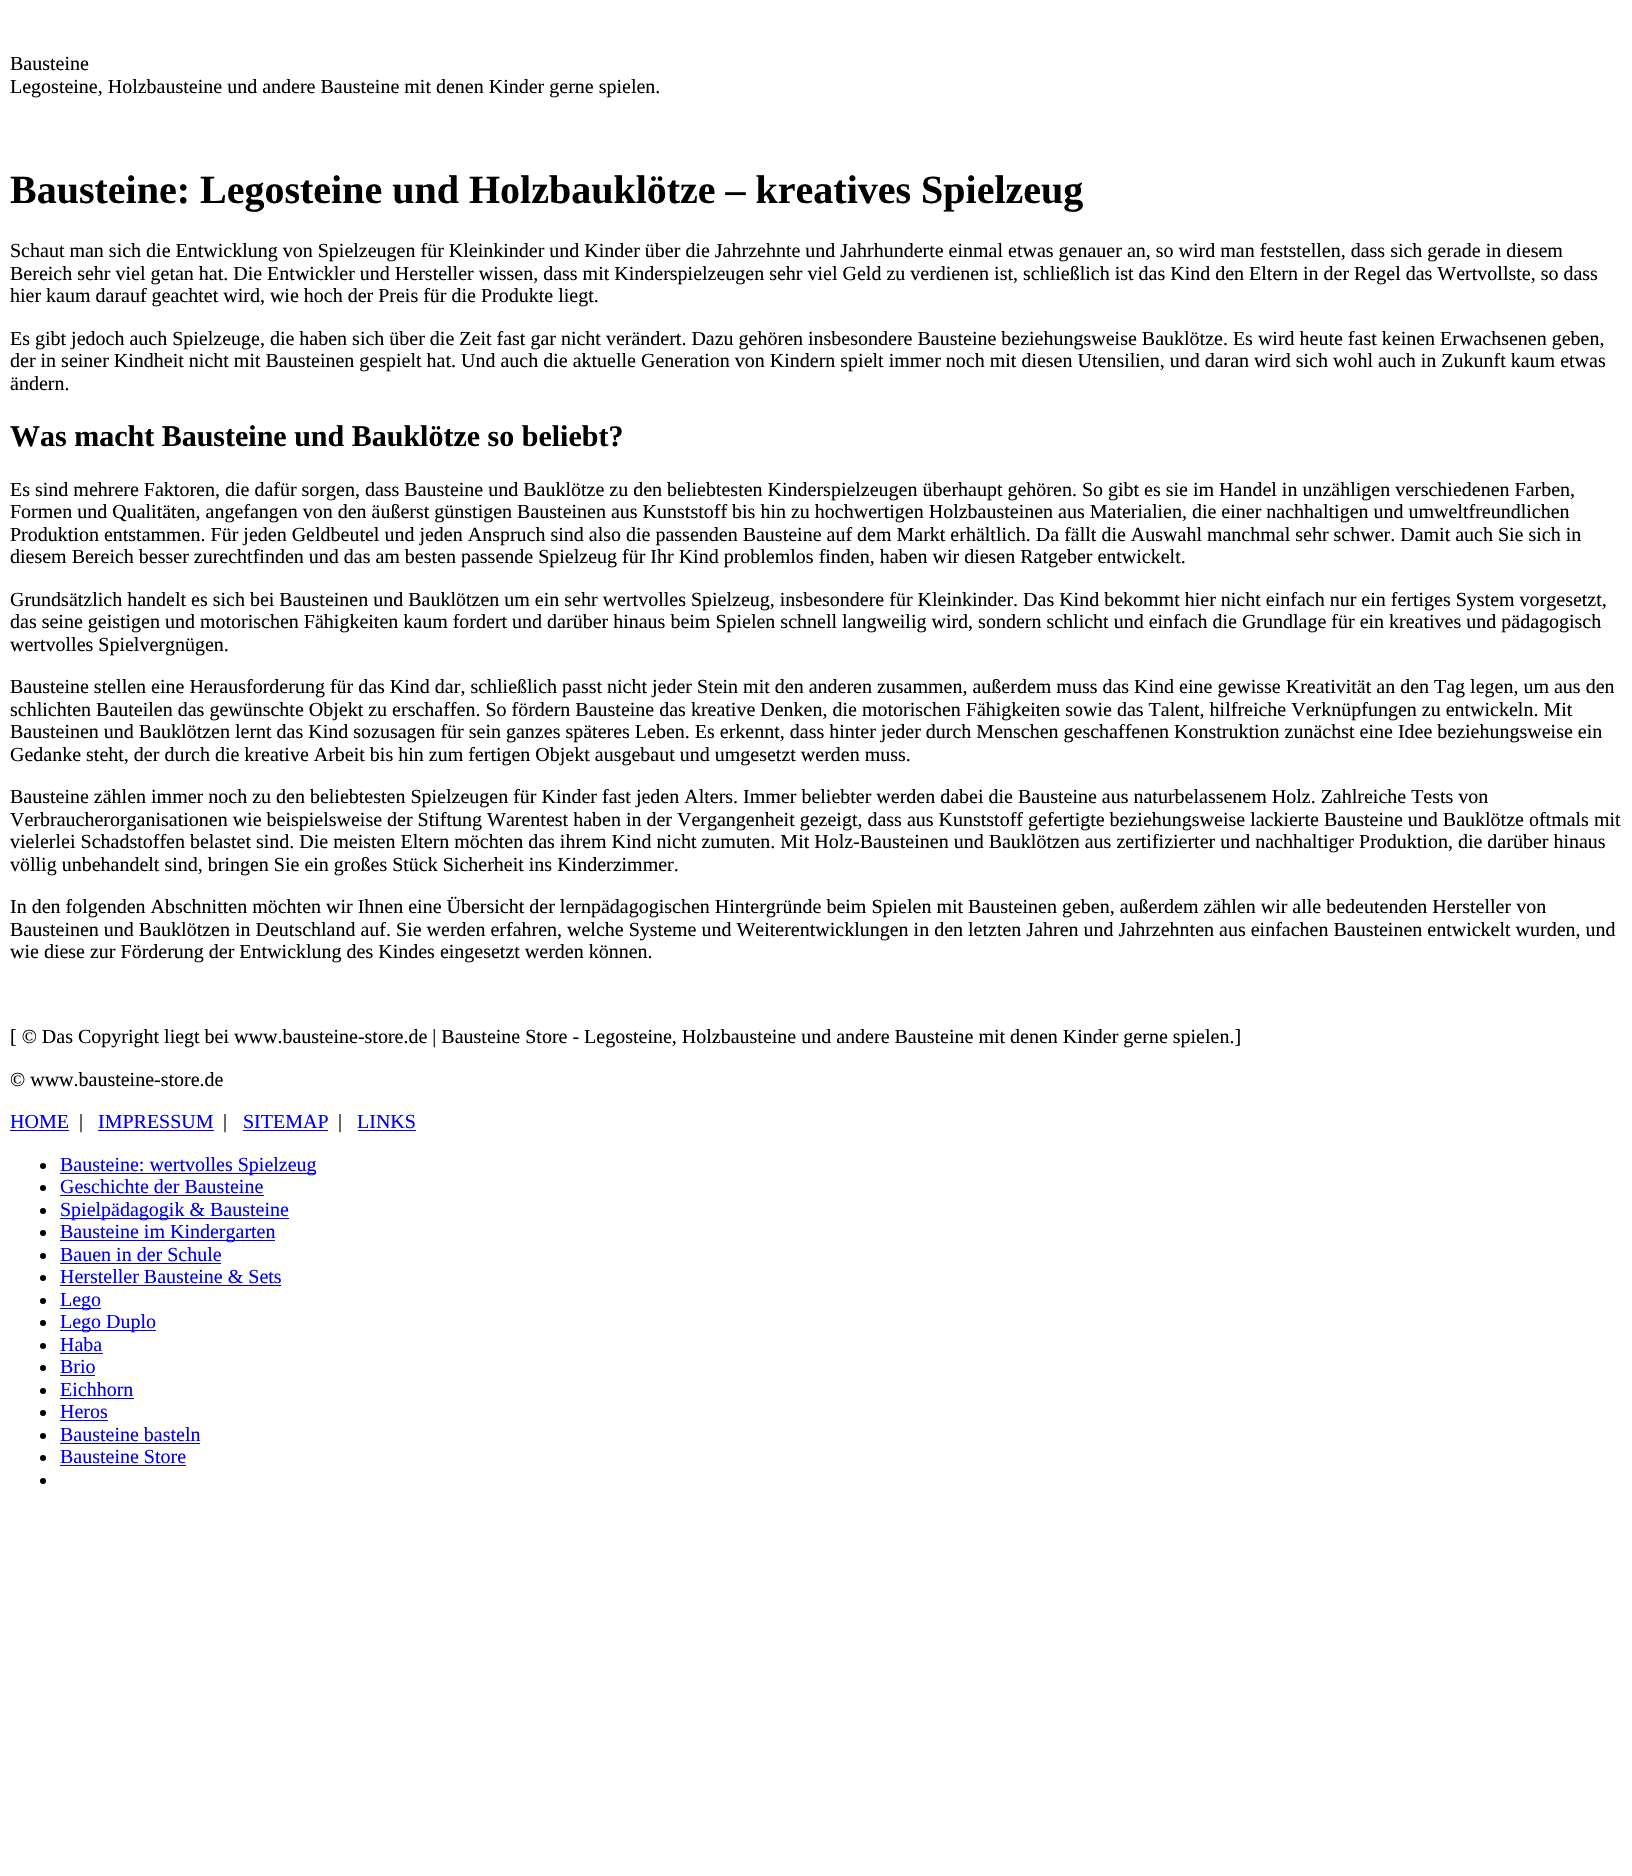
void draw(SkCanvas* canvas) {
    SkPaint paint;
    paint.setAntiAlias(true);
    canvas->clear(0xFFFFFFFF);
    SkFont font1(fontMgr->matchFamilyStyle("Liberation Serif", SkFontStyle::Normal()), 20);
    font1.setSubpixel(true);
    paint.setColor(0xFF000000);
    canvas->drawString("Bausteine", 10, 70, font1, paint);
    canvas->drawString("Legosteine, Holzbausteine und andere Bausteine mit denen Kinder gerne spielen.", 10, 93, font1, paint);
    SkFont font2(fontMgr->matchFamilyStyle("Liberation Serif", SkFontStyle::Bold()), 40);
    font2.setSubpixel(true);
    canvas->drawString("Bausteine: Legosteine und Holzbauklötze – kreatives Spielzeug", 10, 203, font2, paint);
    canvas->drawString("Schaut man sich die Entwicklung von Spielzeugen für Kleinkinder und Kinder über die Jahrzehnte und Jahrhunderte einmal etwas genauer an, so wird man feststellen, dass sich gerade in diesem", 10, 257, font1, paint);
    canvas->drawString("Bereich sehr viel getan hat. Die Entwickler und Hersteller wissen, dass mit Kinderspielzeugen sehr viel Geld zu verdienen ist, schließlich ist das Kind den Eltern in der Regel das Wertvollste, so dass", 10, 280, font1, paint);
    canvas->drawString("hier kaum darauf geachtet wird, wie hoch der Preis für die Produkte liegt.", 10, 302, font1, paint);
    canvas->drawString("Es gibt jedoch auch Spielzeuge, die haben sich über die Zeit fast gar nicht verändert. Dazu gehören insbesondere Bausteine beziehungsweise Bauklötze. Es wird heute fast keinen Erwachsenen geben,", 10, 345, font1, paint);
    canvas->drawString("der in seiner Kindheit nicht mit Bausteinen gespielt hat. Und auch die aktuelle Generation von Kindern spielt immer noch mit diesen Utensilien, und daran wird sich wohl auch in Zukunft kaum etwas", 10, 367, font1, paint);
    canvas->drawString("ändern.", 10, 390, font1, paint);
    SkFont font3(fontMgr->matchFamilyStyle("Liberation Serif", SkFontStyle::Bold()), 30);
    font3.setSubpixel(true);
    canvas->drawString("Was macht Bausteine und Bauklötze so beliebt?", 10, 446, font3, paint);
    canvas->drawString("Es sind mehrere Faktoren, die dafür sorgen, dass Bausteine und Bauklötze zu den beliebtesten Kinderspielzeugen überhaupt gehören. So gibt es sie im Handel in unzähligen verschiedenen Farben,", 10, 496, font1, paint);
    canvas->drawString("Formen und Qualitäten, angefangen von den äußerst günstigen Bausteinen aus Kunststoff bis hin zu hochwertigen Holzbausteinen aus Materialien, die einer nachhaltigen und umweltfreundlichen", 10, 518, font1, paint);
    canvas->drawString("Produktion entstammen. Für jeden Geldbeutel und jeden Anspruch sind also die passenden Bausteine auf dem Markt erhältlich. Da fällt die Auswahl manchmal sehr schwer. Damit auch Sie sich in", 10, 541, font1, paint);
    canvas->drawString("diesem Bereich besser zurechtfinden und das am besten passende Spielzeug für Ihr Kind problemlos finden, haben wir diesen Ratgeber entwickelt.", 10, 563, font1, paint);
    canvas->drawString("Grundsätzlich handelt es sich bei Bausteinen und Bauklötzen um ein sehr wertvolles Spielzeug, insbesondere für Kleinkinder. Das Kind bekommt hier nicht einfach nur ein fertiges System vorgesetzt,", 10, 606, font1, paint);
    canvas->drawString("das seine geistigen und motorischen Fähigkeiten kaum fordert und darüber hinaus beim Spielen schnell langweilig wird, sondern schlicht und einfach die Grundlage für ein kreatives und pädagogisch", 10, 628, font1, paint);
    canvas->drawString("wertvolles Spielvergnügen.", 10, 651, font1, paint);
    canvas->drawString("Bausteine stellen eine Herausforderung für das Kind dar, schließlich passt nicht jeder Stein mit den anderen zusammen, außerdem muss das Kind eine gewisse Kreativität an den Tag legen, um aus den", 10, 693, font1, paint);
    canvas->drawString("schlichten Bauteilen das gewünschte Objekt zu erschaffen. So fördern Bausteine das kreative Denken, die motorischen Fähigkeiten sowie das Talent, hilfreiche Verknüpfungen zu entwickeln. Mit", 10, 716, font1, paint);
    canvas->drawString("Bausteinen und Bauklötzen lernt das Kind sozusagen für sein ganzes späteres Leben. Es erkennt, dass hinter jeder durch Menschen geschaffenen Konstruktion zunächst eine Idee beziehungsweise ein", 10, 738, font1, paint);
    canvas->drawString("Gedanke steht, der durch die kreative Arbeit bis hin zum fertigen Objekt ausgebaut und umgesetzt werden muss.", 10, 761, font1, paint);
    canvas->drawString("Bausteine zählen immer noch zu den beliebtesten Spielzeugen für Kinder fast jeden Alters. Immer beliebter werden dabei die Bausteine aus naturbelassenem Holz. Zahlreiche Tests von", 10, 803, font1, paint);
    canvas->drawString("Verbraucherorganisationen wie beispielsweise der Stiftung Warentest haben in der Vergangenheit gezeigt, dass aus Kunststoff gefertigte beziehungsweise lackierte Bausteine und Bauklötze oftmals mit", 10, 826, font1, paint);
    canvas->drawString("vielerlei Schadstoffen belastet sind. Die meisten Eltern möchten das ihrem Kind nicht zumuten. Mit Holz-Bausteinen und Bauklötzen aus zertifizierter und nachhaltiger Produktion, die darüber hinaus", 10, 848, font1, paint);
    canvas->drawString("völlig unbehandelt sind, bringen Sie ein großes Stück Sicherheit ins Kinderzimmer.", 10, 871, font1, paint);
    canvas->drawString("In den folgenden Abschnitten möchten wir Ihnen eine Übersicht der lernpädagogischen Hintergründe beim Spielen mit Bausteinen geben, außerdem zählen wir alle bedeutenden Hersteller von", 10, 913, font1, paint);
    canvas->drawString("Bausteinen und Bauklötzen in Deutschland auf. Sie werden erfahren, welche Systeme und Weiterentwicklungen in den letzten Jahren und Jahrzehnten aus einfachen Bausteinen entwickelt wurden, und", 10, 936, font1, paint);
    canvas->drawString("wie diese zur Förderung der Entwicklung des Kindes eingesetzt werden können.", 10, 958, font1, paint);
    canvas->drawString("[ © Das Copyright liegt bei www.bausteine-store.de | Bausteine Store - Legosteine, Holzbausteine und andere Bausteine mit denen Kinder gerne spielen.]", 10, 1043, font1, paint);
    canvas->drawString("© www.bausteine-store.de", 10, 1086, font1, paint);
    paint.setColor(0xFF0000EE);
    canvas->drawString("HOME", 10, 1128, font1, paint);
    canvas->drawRect(SkRect::MakeXYWH(10, 1130, 59, 1), paint);
    paint.setColor(0xFF000000);
    canvas->drawString("|", 79, 1128, font1, paint);
    paint.setColor(0xFF0000EE);
    canvas->drawString("IMPRESSUM", 98, 1128, font1, paint);
    canvas->drawRect(SkRect::MakeXYWH(98, 1130, 116, 1), paint);
    paint.setColor(0xFF000000);
    canvas->drawString("|", 223, 1128, font1, paint);
    paint.setColor(0xFF0000EE);
    canvas->drawString("SITEMAP", 243, 1128, font1, paint);
    canvas->drawRect(SkRect::MakeXYWH(243, 1130, 85, 1), paint);
    paint.setColor(0xFF000000);
    canvas->drawString("|", 338, 1128, font1, paint);
    paint.setColor(0xFF0000EE);
    canvas->drawString("LINKS", 357, 1128, font1, paint);
    canvas->drawRect(SkRect::MakeXYWH(358, 1130, 58, 1), paint);
    paint.setColor(0xFF000000);
    canvas->drawCircle(43, 1166, 3, paint);
    paint.setColor(0xFF0000EE);
    canvas->drawRect(SkRect::MakeXYWH(60, 1173, 256, 1), paint);
    canvas->drawString("Bausteine: wertvolles Spielzeug", 60, 1171, font1, paint);
    paint.setColor(0xFF000000);
    canvas->drawCircle(43, 1188, 3, paint);
    paint.setColor(0xFF0000EE);
    canvas->drawString("Geschichte der Bausteine", 60, 1193, font1, paint);
    canvas->drawRect(SkRect::MakeXYWH(60, 1195, 204, 1), paint);
    paint.setColor(0xFF000000);
    canvas->drawCircle(43, 1211, 3, paint);
    paint.setColor(0xFF0000EE);
    canvas->drawRect(SkRect::MakeXYWH(60, 1218, 229, 1), paint);
    canvas->drawString("Spielpädagogik & Bausteine", 60, 1216, font1, paint);
    paint.setColor(0xFF000000);
    canvas->drawCircle(43, 1233, 3, paint);
    paint.setColor(0xFF0000EE);
    canvas->drawRect(SkRect::MakeXYWH(60, 1240, 215, 1), paint);
    canvas->drawString("Bausteine im Kindergarten", 60, 1238, font1, paint);
    paint.setColor(0xFF000000);
    canvas->drawCircle(43, 1256, 3, paint);
    paint.setColor(0xFF0000EE);
    canvas->drawString("Bauen in der Schule", 60, 1261, font1, paint);
    canvas->drawRect(SkRect::MakeXYWH(60, 1263, 161, 1), paint);
    paint.setColor(0xFF000000);
    canvas->drawCircle(43, 1278, 3, paint);
    paint.setColor(0xFF0000EE);
    canvas->drawString("Hersteller Bausteine & Sets", 60, 1283, font1, paint);
    canvas->drawRect(SkRect::MakeXYWH(60, 1285, 221, 1), paint);
    paint.setColor(0xFF000000);
    canvas->drawCircle(43, 1301, 3, paint);
    paint.setColor(0xFF0000EE);
    canvas->drawRect(SkRect::MakeXYWH(60, 1308, 41, 1), paint);
    canvas->drawString("Lego", 60, 1306, font1, paint);
    paint.setColor(0xFF000000);
    canvas->drawCircle(43, 1323, 3, paint);
    paint.setColor(0xFF0000EE);
    canvas->drawRect(SkRect::MakeXYWH(60, 1330, 96, 1), paint);
    canvas->drawString("Lego Duplo", 60, 1328, font1, paint);
    paint.setColor(0xFF000000);
    canvas->drawCircle(43, 1346, 3, paint);
    paint.setColor(0xFF0000EE);
    canvas->drawString("Haba", 60, 1351, font1, paint);
    canvas->drawRect(SkRect::MakeXYWH(60, 1353, 43, 1), paint);
    paint.setColor(0xFF000000);
    canvas->drawCircle(43, 1368, 3, paint);
    paint.setColor(0xFF0000EE);
    canvas->drawString("Brio", 60, 1373, font1, paint);
    canvas->drawRect(SkRect::MakeXYWH(60, 1375, 35, 1), paint);
    paint.setColor(0xFF000000);
    canvas->drawCircle(43, 1391, 3, paint);
    paint.setColor(0xFF0000EE);
    canvas->drawString("Eichhorn", 60, 1396, font1, paint);
    canvas->drawRect(SkRect::MakeXYWH(60, 1398, 74, 1), paint);
    paint.setColor(0xFF000000);
    canvas->drawCircle(43, 1413, 3, paint);
    paint.setColor(0xFF0000EE);
    canvas->drawString("Heros", 60, 1418, font1, paint);
    canvas->drawRect(SkRect::MakeXYWH(60, 1420, 48, 1), paint);
    paint.setColor(0xFF000000);
    canvas->drawCircle(43, 1436, 3, paint);
    paint.setColor(0xFF0000EE);
    canvas->drawString("Bausteine basteln", 60, 1441, font1, paint);
    canvas->drawRect(SkRect::MakeXYWH(60, 1443, 140, 1), paint);
    paint.setColor(0xFF000000);
    canvas->drawCircle(43, 1458, 3, paint);
    paint.setColor(0xFF0000EE);
    canvas->drawString("Bausteine Store", 60, 1463, font1, paint);
    canvas->drawRect(SkRect::MakeXYWH(60, 1465, 126, 1), paint);
    paint.setColor(0xFF000000);
    canvas->drawCircle(43, 1481, 3, paint);
}
